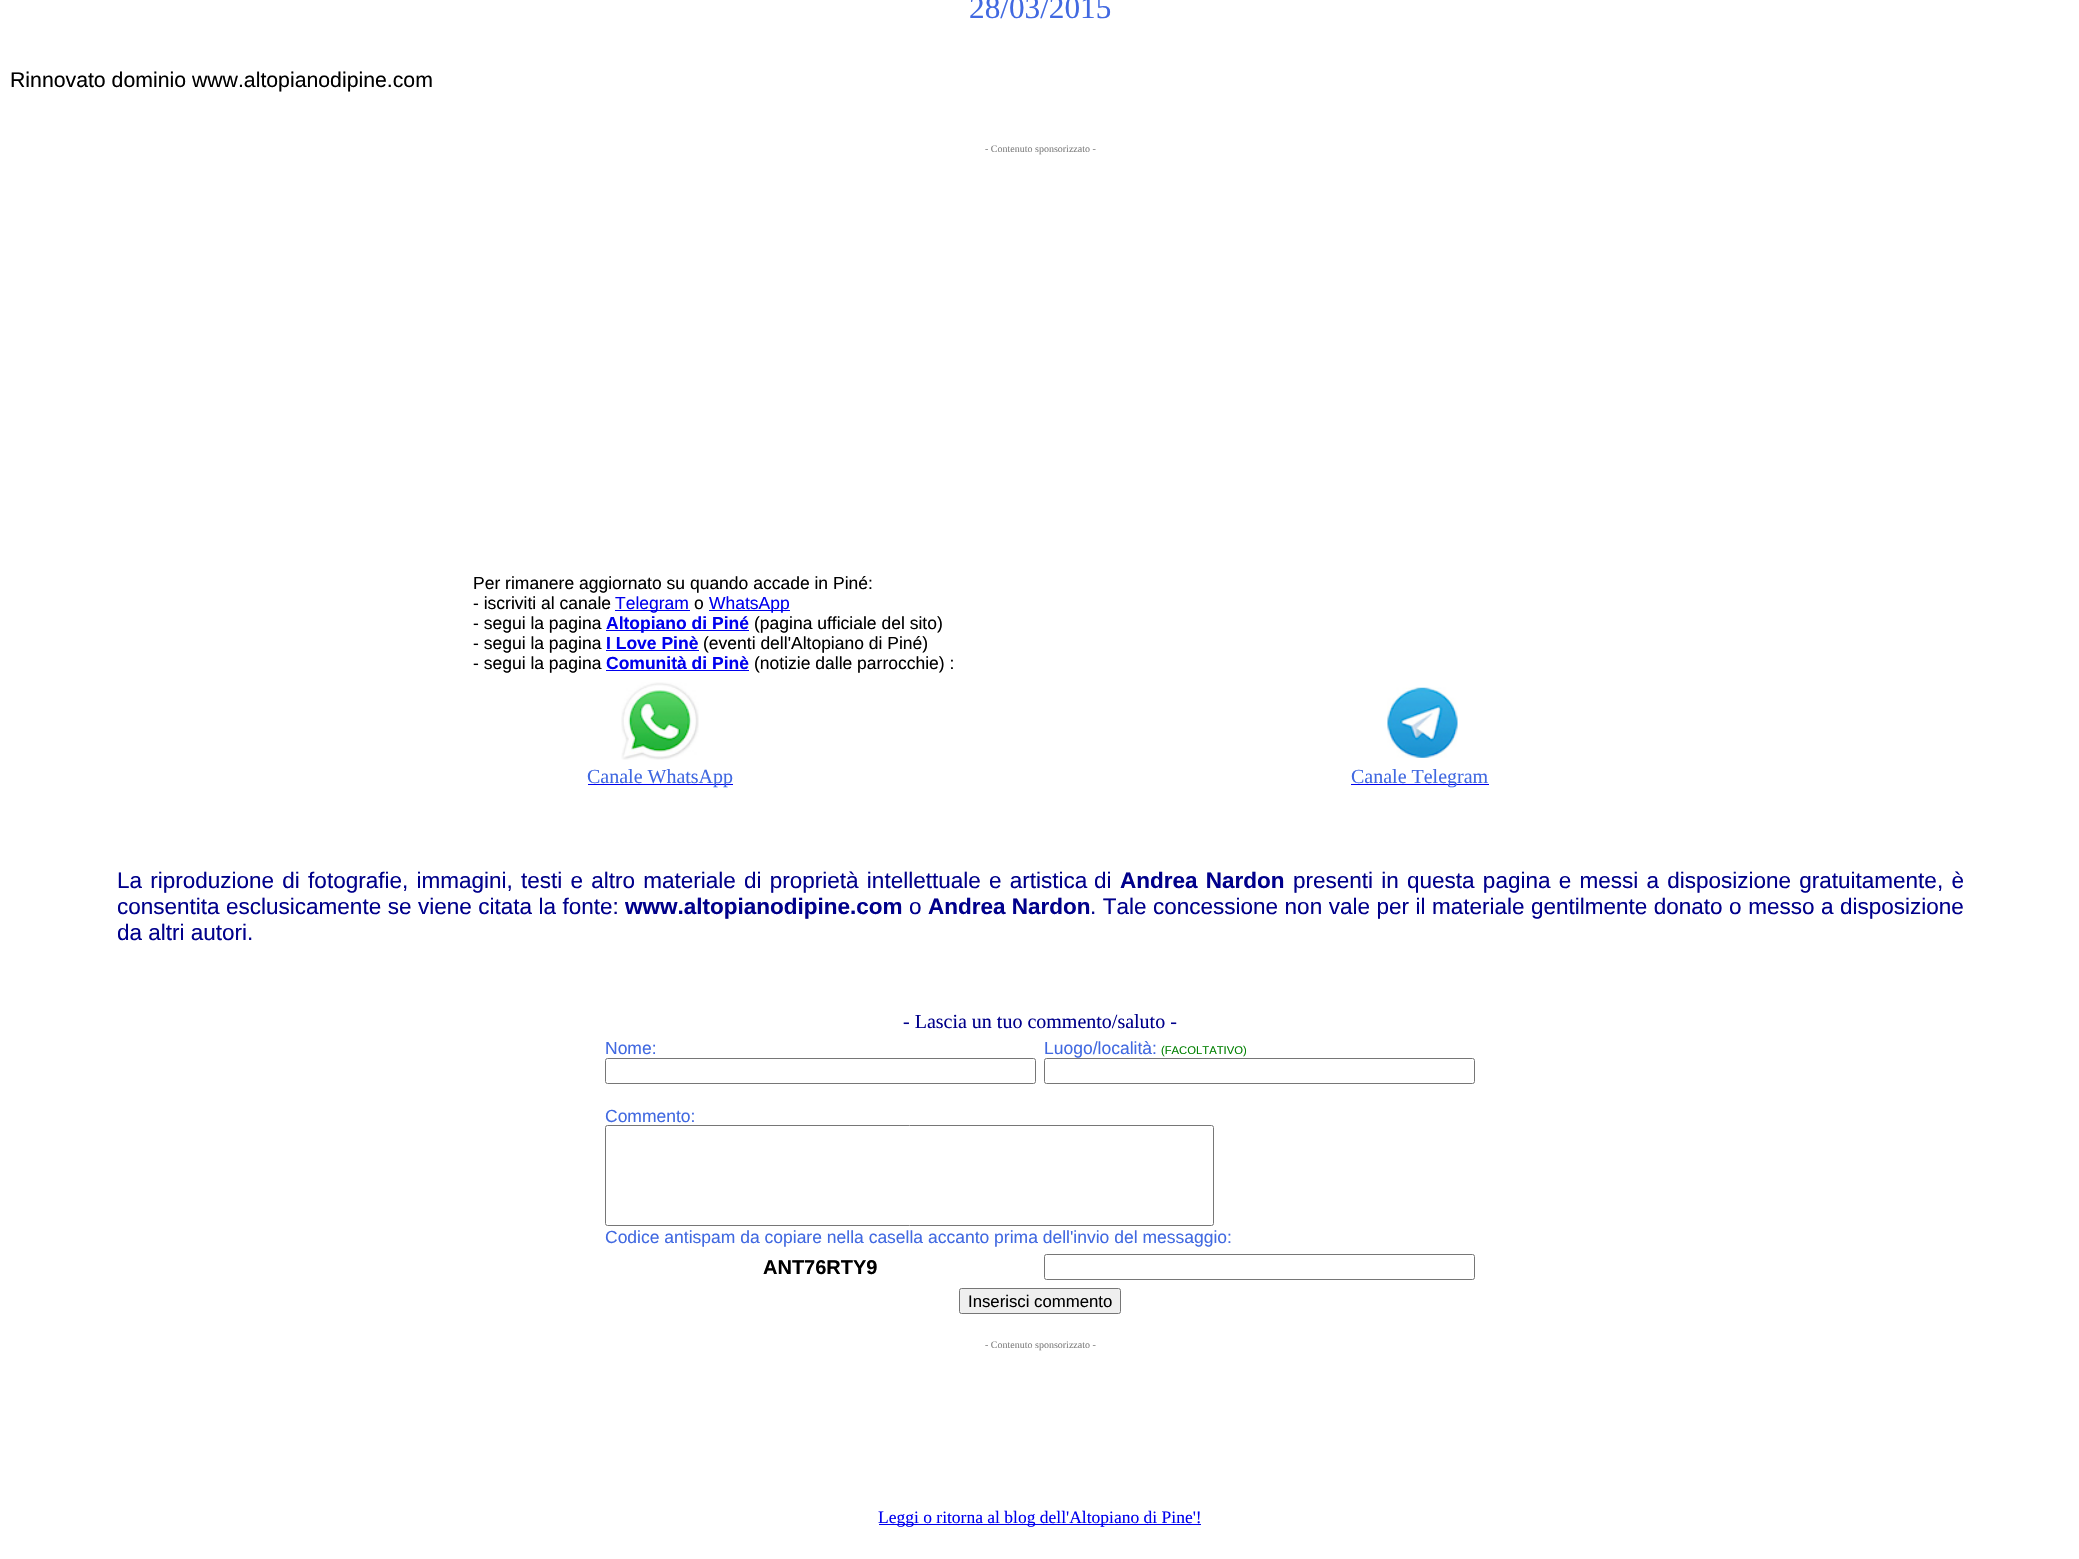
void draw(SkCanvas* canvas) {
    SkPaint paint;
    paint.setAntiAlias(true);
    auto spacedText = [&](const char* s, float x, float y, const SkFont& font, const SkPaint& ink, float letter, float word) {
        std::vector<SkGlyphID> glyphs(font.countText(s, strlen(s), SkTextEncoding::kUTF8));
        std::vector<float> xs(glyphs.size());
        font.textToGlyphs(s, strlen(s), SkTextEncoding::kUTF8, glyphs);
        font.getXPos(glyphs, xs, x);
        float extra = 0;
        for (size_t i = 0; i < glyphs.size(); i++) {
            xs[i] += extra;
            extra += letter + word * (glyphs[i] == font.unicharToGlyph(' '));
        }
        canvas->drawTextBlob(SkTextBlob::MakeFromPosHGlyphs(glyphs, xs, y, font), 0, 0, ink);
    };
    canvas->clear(0xFFFFFFFF);
    SkFont font1(fontMgr->matchFamilyStyle("Liberation Serif", SkFontStyle::Normal()), 31.25f);
    font1.setSubpixel(true);
    paint.setColor(0xFF4169E1);
    canvas->drawString("28/03/2015", 969, 18, font1, paint);
    SkFont font2(fontMgr->matchFamilyStyle("Liberation Sans", SkFontStyle::Normal()), 21.25f);
    font2.setSubpixel(true);
    paint.setColor(0xFF000000);
    canvas->drawString("Rinnovato dominio www.altopianodipine.com", 10, 87, font2, paint);
    SkFont font3(fontMgr->matchFamilyStyle("Liberation Serif", SkFontStyle::Normal()), 10);
    font3.setSubpixel(true);
    paint.setColor(0xFF808080);
    canvas->drawString("- Contenuto sponsorizzato -", 985, 152, font3, paint);
    SkFont font4(fontMgr->matchFamilyStyle("Liberation Sans", SkFontStyle::Normal()), 17.5f);
    font4.setSubpixel(true);
    paint.setColor(0xFF000000);
    canvas->drawString("Per rimanere aggiornato su quando accade in Piné:", 473, 589, font4, paint);
    canvas->drawString("- iscriviti al canale", 473, 609, font4, paint);
    paint.setColor(0xFF0000EE);
    canvas->drawRect(SkRect::MakeXYWH(615, 610, 75, 1), paint);
    canvas->drawString("Telegram", 615, 609, font4, paint);
    paint.setColor(0xFF000000);
    canvas->drawString("o", 694, 609, font4, paint);
    paint.setColor(0xFF0000EE);
    canvas->drawRect(SkRect::MakeXYWH(709, 610, 81, 1), paint);
    canvas->drawString("WhatsApp", 709, 609, font4, paint);
    paint.setColor(0xFF000000);
    canvas->drawString("- segui la pagina", 473, 629, font4, paint);
    paint.setColor(0xFF0000EE);
    canvas->drawRect(SkRect::MakeXYWH(606, 630, 143, 1), paint);
    SkFont font5(fontMgr->matchFamilyStyle("Liberation Sans", SkFontStyle::Bold()), 17.5f);
    font5.setSubpixel(true);
    canvas->drawString("Altopiano di Piné", 606, 629, font5, paint);
    paint.setColor(0xFF000000);
    canvas->drawString("(pagina ufficiale del sito)", 754, 629, font4, paint);
    canvas->drawString("- segui la pagina", 473, 649, font4, paint);
    paint.setColor(0xFF0000EE);
    canvas->drawString("I Love Pinè", 606, 649, font5, paint);
    canvas->drawRect(SkRect::MakeXYWH(606, 650, 93, 1), paint);
    paint.setColor(0xFF000000);
    canvas->drawString("(eventi dell'Altopiano di Piné)", 703, 649, font4, paint);
    canvas->drawString("- segui la pagina", 473, 669, font4, paint);
    paint.setColor(0xFF0000EE);
    canvas->drawString("Comunità di Pinè", 606, 669, font5, paint);
    canvas->drawRect(SkRect::MakeXYWH(606, 670, 143, 1), paint);
    paint.setColor(0xFF000000);
    canvas->drawString("(notizie dalle parrocchie) :", 754, 669, font4, paint);
    canvas->drawImageRect(SkImages::DeferredFromEncodedData(SkData::MakeFromFileName("img1.png")), SkRect::MakeXYWH(621, 682, 78, 78), SkSamplingOptions());
    paint.setColor(0xFF0000EE);
    canvas->drawRect(SkRect::MakeXYWH(588, 784, 145, 1), paint);
    SkFont font6(fontMgr->matchFamilyStyle("Liberation Serif", SkFontStyle::Normal()), 20);
    font6.setSubpixel(true);
    paint.setColor(0xFF4169E1);
    canvas->drawString("Canale WhatsApp", 587, 783, font6, paint);
    canvas->drawImageRect(SkImages::DeferredFromEncodedData(SkData::MakeFromFileName("img2.png")), SkRect::MakeXYWH(1387, 687, 71, 71), SkSamplingOptions());
    paint.setColor(0xFF0000EE);
    canvas->drawRect(SkRect::MakeXYWH(1351, 784, 138, 1), paint);
    paint.setColor(0xFF4169E1);
    canvas->drawString("Canale Telegram", 1351, 783, font6, paint);
    SkFont font7(fontMgr->matchFamilyStyle("Liberation Sans", SkFontStyle::Normal()), 22.5f);
    font7.setSubpixel(true);
    paint.setColor(0xFF00008B);
    spacedText("La riproduzione di fotografie, immagini, testi e altro materiale di proprietà intellettuale e artistica", 117, 888, font7, paint, 0, 2);
    canvas->drawString("di", 1094, 888, font7, paint);
    SkFont font8(fontMgr->matchFamilyStyle("Liberation Sans", SkFontStyle::Bold()), 22.5f);
    font8.setSubpixel(true);
    spacedText("Andrea Nardon", 1120, 888, font8, paint, 0, 2);
    spacedText("presenti in questa pagina e messi a disposizione gratuitamente, è", 1293, 888, font7, paint, 0, 2);
    spacedText("consentita esclusicamente se viene citata la fonte:", 117, 914, font7, paint, 0, 0.25f);
    canvas->drawString("www.altopianodipine.com", 625, 914, font8, paint);
    canvas->drawString("o", 909, 914, font7, paint);
    canvas->drawString("Andrea Nardon", 928, 914, font8, paint);
    spacedText(". Tale concessione non vale per il materiale gentilmente donato o messo a disposizione", 1090, 914, font7, paint, 0, 0.25f);
    canvas->drawString("da altri autori.", 117, 940, font7, paint);
    canvas->drawString("- Lascia un tuo commento/saluto -", 903, 1028, font6, paint);
    paint.setColor(0xFF4169E1);
    canvas->drawString("Nome:", 605, 1054, font4, paint);
    paint.setStyle(SkPaint::kStroke_Style);
    paint.setStrokeWidth(1);
    paint.setColor(0xFF767676);
    canvas->drawRoundRect(SkRect::MakeXYWH(605.5f, 1058.5f, 430, 25), 2, 2, paint);
    paint.setStyle(SkPaint::kFill_Style);
    paint.setColor(0xFF4169E1);
    canvas->drawString("Luogo/località:", 1044, 1054, font4, paint);
    SkFont font9(fontMgr->matchFamilyStyle("Liberation Sans", SkFontStyle::Normal()), 11.25f);
    font9.setSubpixel(true);
    paint.setColor(0xFF008000);
    canvas->drawString("(FACOLTATIVO)", 1161, 1054, font9, paint);
    paint.setStyle(SkPaint::kStroke_Style);
    paint.setColor(0xFF767676);
    canvas->drawRoundRect(SkRect::MakeXYWH(1044.5f, 1058.5f, 430, 25), 2, 2, paint);
    paint.setStyle(SkPaint::kFill_Style);
    paint.setColor(0xFF4169E1);
    canvas->drawString("Commento:", 605, 1122, font4, paint);
    paint.setStyle(SkPaint::kStroke_Style);
    paint.setColor(0xFF767676);
    canvas->drawRoundRect(SkRect::MakeXYWH(605.5f, 1125.5f, 608, 100), 2, 2, paint);
    paint.setStyle(SkPaint::kFill_Style);
    paint.setColor(0xFF4169E1);
    canvas->drawString("Codice antispam da copiare nella casella accanto prima dell'invio del messaggio:", 605, 1243, font4, paint);
    SkFont font10(fontMgr->matchFamilyStyle("Liberation Sans", SkFontStyle::Bold()), 20);
    font10.setSubpixel(true);
    paint.setColor(0xFF000000);
    canvas->drawString("ANT76RTY9", 763, 1274, font10, paint);
    paint.setStyle(SkPaint::kStroke_Style);
    paint.setColor(0xFF767676);
    canvas->drawRoundRect(SkRect::MakeXYWH(1044.5f, 1254.5f, 430, 25), 2, 2, paint);
    paint.setStyle(SkPaint::kFill_Style);
    paint.setColor(0xFFEFEFEF);
    canvas->drawRoundRect(SkRect::MakeXYWH(959.5f, 1288.5f, 161, 25), 2, 2, paint);
    paint.setStyle(SkPaint::kStroke_Style);
    paint.setColor(0xFF767676);
    canvas->drawRoundRect(SkRect::MakeXYWH(959.5f, 1288.5f, 161, 25), 2, 2, paint);
    SkFont font11(fontMgr->matchFamilyStyle("Liberation Sans", SkFontStyle::Normal()), 16.75f);
    font11.setSubpixel(true);
    paint.setStyle(SkPaint::kFill_Style);
    paint.setColor(0xFF000000);
    canvas->drawString("Inserisci commento", 968, 1307, font11, paint);
    paint.setColor(0xFF808080);
    canvas->drawString("- Contenuto sponsorizzato -", 985, 1348, font3, paint);
    paint.setColor(0xFF0000EE);
    canvas->drawRect(SkRect::MakeXYWH(879, 1524, 322, 1), paint);
    SkFont font12(fontMgr->matchFamilyStyle("Liberation Serif", SkFontStyle::Normal()), 17.5f);
    font12.setSubpixel(true);
    canvas->drawString("Leggi o ritorna al blog dell'Altopiano di Pine'!", 878, 1523, font12, paint);
}
